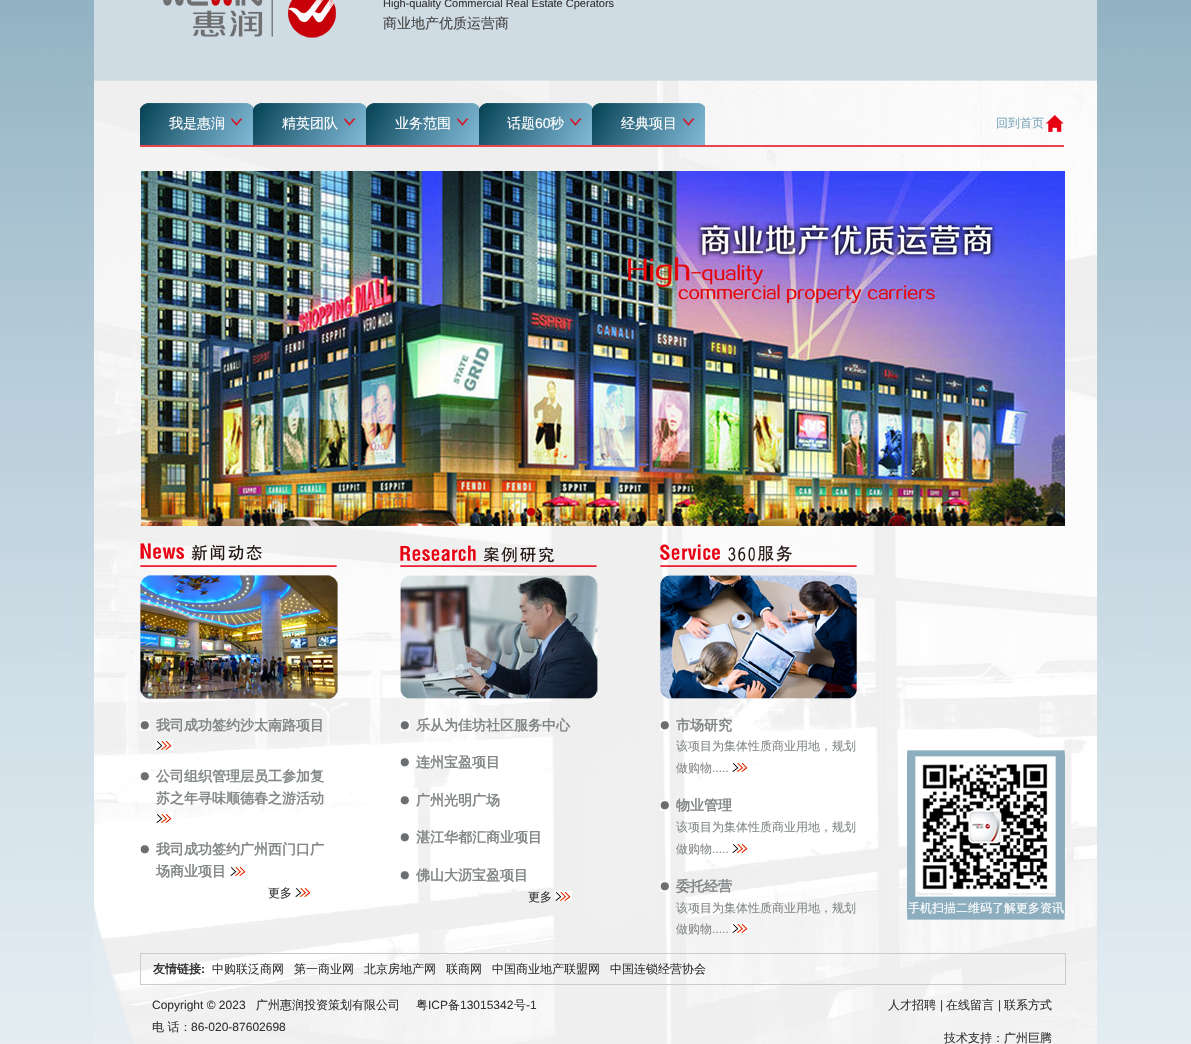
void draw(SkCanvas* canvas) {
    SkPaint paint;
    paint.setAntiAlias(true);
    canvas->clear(0xFFFFFFFF);
    canvas->drawImageRect(SkImages::DeferredFromEncodedData(SkData::MakeFromFileName("img1.png")), SkRect::MakeXYWH(0, 0, 1191, 1044), SkSamplingOptions());
    canvas->drawImageRect(SkImages::DeferredFromEncodedData(SkData::MakeFromFileName("img2.png")), SkRect::MakeXYWH(94, 0, 1003, 1044), SkSamplingOptions());
    canvas->drawImageRect(SkImages::DeferredFromEncodedData(SkData::MakeFromFileName("img3.png")), SkRect::MakeXYWH(163, 0, 173, 38), SkSamplingOptions());
    SkFont font1(fontMgr->matchFamilyStyle("Liberation Sans", SkFontStyle::Normal()), 11);
    font1.setSubpixel(true);
    paint.setColor(0xFF333333);
    canvas->drawString("High-quality Commercial Real Estate Cperators", 383, 7, font1, paint);
    SkFont font2(fontMgr->matchFamilyStyle("WenQuanYi Zen Hei", SkFontStyle(500, SkFontStyle::kNormal_Width, SkFontStyle::kUpright_Slant)), 14);
    font2.setSubpixel(true);
    paint.setColor(0xFF444444);
    canvas->drawString("商业地产优质运营商", 383, 28, font2, paint);
    paint.setColor(0xFFE84551);
    canvas->drawRect(SkRect::MakeXYWH(140, 145, 924, 2), paint);
    canvas->drawImageRect(SkImages::DeferredFromEncodedData(SkData::MakeFromFileName("img4.png")), SkRect::MakeXYWH(140, 103, 113, 42), SkSamplingOptions());
    paint.setColor(0xFFFFFFFF);
    canvas->drawString("我是惠润", 169, 128, font2, paint);
    canvas->drawImageRect(SkImages::DeferredFromEncodedData(SkData::MakeFromFileName("img4.png")), SkRect::MakeXYWH(253, 103, 113, 42), SkSamplingOptions());
    canvas->drawString("精英团队", 282, 128, font2, paint);
    canvas->drawImageRect(SkImages::DeferredFromEncodedData(SkData::MakeFromFileName("img4.png")), SkRect::MakeXYWH(366, 103, 113, 42), SkSamplingOptions());
    canvas->drawString("业务范围", 395, 128, font2, paint);
    canvas->drawImageRect(SkImages::DeferredFromEncodedData(SkData::MakeFromFileName("img5.png")), SkRect::MakeXYWH(479, 103, 113, 42), SkSamplingOptions());
    canvas->drawString("话题", 507, 128, font2, paint);
    SkFont font3(fontMgr->matchFamilyStyle("Liberation Sans", SkFontStyle::Normal()), 14);
    font3.setSubpixel(true);
    canvas->drawString("60", 535, 128, font3, paint);
    canvas->drawString("秒", 550, 128, font2, paint);
    canvas->drawImageRect(SkImages::DeferredFromEncodedData(SkData::MakeFromFileName("img6.png")), SkRect::MakeXYWH(592, 103, 113, 42), SkSamplingOptions());
    canvas->drawString("经典项目", 621, 128, font2, paint);
    canvas->drawImageRect(SkImages::DeferredFromEncodedData(SkData::MakeFromFileName("img7.png")), SkRect::MakeXYWH(1045, 115, 19, 17), SkSamplingOptions());
    SkFont font4(fontMgr->matchFamilyStyle("WenQuanYi Zen Hei", SkFontStyle(500, SkFontStyle::kNormal_Width, SkFontStyle::kUpright_Slant)), 12);
    font4.setSubpixel(true);
    paint.setColor(0xFF7CA8BD);
    canvas->drawString("回到首页", 996, 127, font4, paint);
    canvas->drawImageRect(SkImages::DeferredFromEncodedData(SkData::MakeFromFileName("img8.png")), SkRect::MakeXYWH(141, 171, 924, 355), SkSamplingOptions());
    paint.setColor(0xFFC7000A);
    canvas->drawCircle(531, 512, 4, paint);
    paint.setColor(0x33000000);
    canvas->drawCircle(547, 512, 4, paint);
    canvas->drawCircle(563, 512, 4, paint);
    canvas->drawCircle(579, 512, 4, paint);
    canvas->drawCircle(595, 512, 4, paint);
    canvas->drawCircle(611, 512, 4, paint);
    canvas->drawCircle(627, 512, 4, paint);
    canvas->drawCircle(643, 512, 4, paint);
    canvas->drawCircle(659, 512, 4, paint);
    canvas->drawCircle(675, 512, 4, paint);
    canvas->drawImageRect(SkImages::DeferredFromEncodedData(SkData::MakeFromFileName("img9.png")), SkRect::MakeXYWH(140, 543, 123, 18), SkSamplingOptions());
    canvas->drawImageRect(SkImages::DeferredFromEncodedData(SkData::MakeFromFileName("img10.png")), SkRect::MakeXYWH(400, 545, 154, 18), SkSamplingOptions());
    canvas->drawImageRect(SkImages::DeferredFromEncodedData(SkData::MakeFromFileName("img11.png")), SkRect::MakeXYWH(660, 544, 132, 18), SkSamplingOptions());
    canvas->drawImageRect(SkImages::DeferredFromEncodedData(SkData::MakeFromFileName("img12.png")), SkRect::MakeXYWH(140, 565, 197, 2), SkSamplingOptions());
    canvas->drawImageRect(SkImages::DeferredFromEncodedData(SkData::MakeFromFileName("img13.png")), SkRect::MakeXYWH(400, 565, 197, 2), SkSamplingOptions());
    canvas->drawImageRect(SkImages::DeferredFromEncodedData(SkData::MakeFromFileName("img14.png")), SkRect::MakeXYWH(660, 565, 197, 2), SkSamplingOptions());
    canvas->drawImageRect(SkImages::DeferredFromEncodedData(SkData::MakeFromFileName("img15.png")), SkRect::MakeXYWH(140, 575, 198, 124), SkSamplingOptions());
    canvas->drawImageRect(SkImages::DeferredFromEncodedData(SkData::MakeFromFileName("img16.png")), SkRect::MakeXYWH(400, 575, 198, 124), SkSamplingOptions());
    canvas->drawImageRect(SkImages::DeferredFromEncodedData(SkData::MakeFromFileName("img17.png")), SkRect::MakeXYWH(660, 575, 197, 124), SkSamplingOptions());
    canvas->drawImageRect(SkImages::DeferredFromEncodedData(SkData::MakeFromFileName("img18.png")), SkRect::MakeXYWH(140, 720, 10, 11), SkSamplingOptions());
    SkFont font5(fontMgr->matchFamilyStyle("WenQuanYi Zen Hei", SkFontStyle::Bold()), 14);
    font5.setSubpixel(true);
    paint.setColor(0xFF848889);
    canvas->drawString("我司成功签约沙太南路项目", 156, 730, font5, paint);
    canvas->drawImageRect(SkImages::DeferredFromEncodedData(SkData::MakeFromFileName("img19.png")), SkRect::MakeXYWH(156, 740, 17, 10), SkSamplingOptions());
    canvas->drawImageRect(SkImages::DeferredFromEncodedData(SkData::MakeFromFileName("img18.png")), SkRect::MakeXYWH(140, 771, 10, 11), SkSamplingOptions());
    canvas->drawString("公司组织管理层员工参加复", 156, 781, font5, paint);
    canvas->drawString("苏之年寻味顺德春之游活动", 156, 803, font5, paint);
    canvas->drawImageRect(SkImages::DeferredFromEncodedData(SkData::MakeFromFileName("img19.png")), SkRect::MakeXYWH(156, 813, 17, 10), SkSamplingOptions());
    canvas->drawImageRect(SkImages::DeferredFromEncodedData(SkData::MakeFromFileName("img18.png")), SkRect::MakeXYWH(140, 844, 10, 11), SkSamplingOptions());
    canvas->drawString("我司成功签约广州西门口广", 156, 854, font5, paint);
    canvas->drawString("场商业项目", 156, 876, font5, paint);
    canvas->drawImageRect(SkImages::DeferredFromEncodedData(SkData::MakeFromFileName("img19.png")), SkRect::MakeXYWH(230, 866, 17, 10), SkSamplingOptions());
    paint.setColor(0xFF333333);
    canvas->drawString("更多", 268, 897, font4, paint);
    canvas->drawImageRect(SkImages::DeferredFromEncodedData(SkData::MakeFromFileName("img19.png")), SkRect::MakeXYWH(295, 887, 17, 10), SkSamplingOptions());
    canvas->drawImageRect(SkImages::DeferredFromEncodedData(SkData::MakeFromFileName("img18.png")), SkRect::MakeXYWH(400, 720, 10, 11), SkSamplingOptions());
    paint.setColor(0xFF848889);
    canvas->drawString("乐从为佳坊社区服务中心", 416, 730, font5, paint);
    canvas->drawImageRect(SkImages::DeferredFromEncodedData(SkData::MakeFromFileName("img18.png")), SkRect::MakeXYWH(400, 757, 10, 11), SkSamplingOptions());
    canvas->drawString("连州宝盈项目", 416, 767, font5, paint);
    canvas->drawImageRect(SkImages::DeferredFromEncodedData(SkData::MakeFromFileName("img18.png")), SkRect::MakeXYWH(400, 795, 10, 11), SkSamplingOptions());
    canvas->drawString("广州光明广场", 416, 805, font5, paint);
    canvas->drawImageRect(SkImages::DeferredFromEncodedData(SkData::MakeFromFileName("img18.png")), SkRect::MakeXYWH(400, 832, 10, 11), SkSamplingOptions());
    canvas->drawString("湛江华都汇商业项目", 416, 842, font5, paint);
    canvas->drawImageRect(SkImages::DeferredFromEncodedData(SkData::MakeFromFileName("img18.png")), SkRect::MakeXYWH(400, 870, 10, 11), SkSamplingOptions());
    canvas->drawString("佛山大沥宝盈项目", 416, 880, font5, paint);
    paint.setColor(0xFF333333);
    canvas->drawString("更多", 528, 901, font4, paint);
    canvas->drawImageRect(SkImages::DeferredFromEncodedData(SkData::MakeFromFileName("img19.png")), SkRect::MakeXYWH(555, 891, 17, 10), SkSamplingOptions());
    canvas->drawImageRect(SkImages::DeferredFromEncodedData(SkData::MakeFromFileName("img18.png")), SkRect::MakeXYWH(660, 720, 10, 11), SkSamplingOptions());
    paint.setColor(0xFF848889);
    canvas->drawString("市场研究", 676, 730, font5, paint);
    canvas->drawString("该项目为集体性质商业用地，规划", 676, 750, font4, paint);
    canvas->drawString("做购物", 676, 772, font4, paint);
    SkFont font6(fontMgr->matchFamilyStyle("Liberation Sans", SkFontStyle::Normal()), 12);
    font6.setSubpixel(true);
    canvas->drawString(".....", 712, 772, font6, paint);
    canvas->drawImageRect(SkImages::DeferredFromEncodedData(SkData::MakeFromFileName("img19.png")), SkRect::MakeXYWH(732, 762, 17, 10), SkSamplingOptions());
    canvas->drawImageRect(SkImages::DeferredFromEncodedData(SkData::MakeFromFileName("img20.png")), SkRect::MakeXYWH(660, 800, 9, 11), SkSamplingOptions());
    canvas->drawString("物业管理", 676, 810, font5, paint);
    canvas->drawString("该项目为集体性质商业用地，规划", 676, 831, font4, paint);
    canvas->drawString("做购物", 676, 853, font4, paint);
    canvas->drawString(".....", 712, 853, font6, paint);
    canvas->drawImageRect(SkImages::DeferredFromEncodedData(SkData::MakeFromFileName("img19.png")), SkRect::MakeXYWH(732, 843, 17, 10), SkSamplingOptions());
    canvas->drawImageRect(SkImages::DeferredFromEncodedData(SkData::MakeFromFileName("img18.png")), SkRect::MakeXYWH(660, 881, 10, 11), SkSamplingOptions());
    canvas->drawString("委托经营", 676, 891, font5, paint);
    canvas->drawString("该项目为集体性质商业用地，规划", 676, 912, font4, paint);
    canvas->drawString("做购物", 676, 933, font4, paint);
    canvas->drawString(".....", 712, 933, font6, paint);
    canvas->drawImageRect(SkImages::DeferredFromEncodedData(SkData::MakeFromFileName("img19.png")), SkRect::MakeXYWH(732, 923, 17, 10), SkSamplingOptions());
    canvas->drawImageRect(SkImages::DeferredFromEncodedData(SkData::MakeFromFileName("img21.png")), SkRect::MakeXYWH(907, 750, 158, 170), SkSamplingOptions());
    paint.setColor(0xFFFFFFFF);
    canvas->drawString("手机扫描二维码了解更多资讯", 908, 912, font4, paint);
    paint.setStyle(SkPaint::kStroke_Style);
    paint.setStrokeWidth(1);
    paint.setColor(0xFFCCCCCC);
    canvas->drawRect(SkRect::MakeXYWH(140.5f, 953.5f, 925, 31), paint);
    SkFont font7(fontMgr->matchFamilyStyle("WenQuanYi Zen Hei", SkFontStyle::Bold()), 12);
    font7.setSubpixel(true);
    paint.setStyle(SkPaint::kFill_Style);
    paint.setColor(0xFF333333);
    canvas->drawString("友情链接", 153, 973, font7, paint);
    SkFont font8(fontMgr->matchFamilyStyle("Liberation Sans", SkFontStyle::Bold()), 12);
    font8.setSubpixel(true);
    canvas->drawString(":", 201, 973, font8, paint);
    canvas->drawString("中购联泛商网", 212, 973, font4, paint);
    canvas->drawString("第一商业网", 294, 973, font4, paint);
    canvas->drawString("北京房地产网", 364, 973, font4, paint);
    canvas->drawString("联商网", 446, 973, font4, paint);
    canvas->drawString("中国商业地产联盟网", 492, 973, font4, paint);
    canvas->drawString("中国连锁经营协会", 610, 973, font4, paint);
    canvas->drawString("Copyright © 2023", 152, 1009, font6, paint);
    canvas->drawString("广州惠润投资策划有限公司", 256, 1009, font4, paint);
    canvas->drawString("粤", 416, 1009, font4, paint);
    canvas->drawString("ICP", 428, 1009, font6, paint);
    canvas->drawString("备", 448, 1009, font4, paint);
    canvas->drawString("13015342", 460, 1009, font6, paint);
    canvas->drawString("号", 514, 1009, font4, paint);
    canvas->drawString("-1", 526, 1009, font6, paint);
    canvas->drawString("电 话：", 152, 1031, font4, paint);
    canvas->drawString("86-020-87602698", 191, 1031, font6, paint);
    canvas->drawString("人才招聘", 888, 1009, font4, paint);
    canvas->drawString("|", 940, 1009, font6, paint);
    canvas->drawString("在线留言", 946, 1009, font4, paint);
    canvas->drawString("|", 998, 1009, font6, paint);
    canvas->drawString("联系方式", 1004, 1009, font4, paint);
    canvas->drawString("技术支持：广州巨腾", 944, 1042, font4, paint);
}
